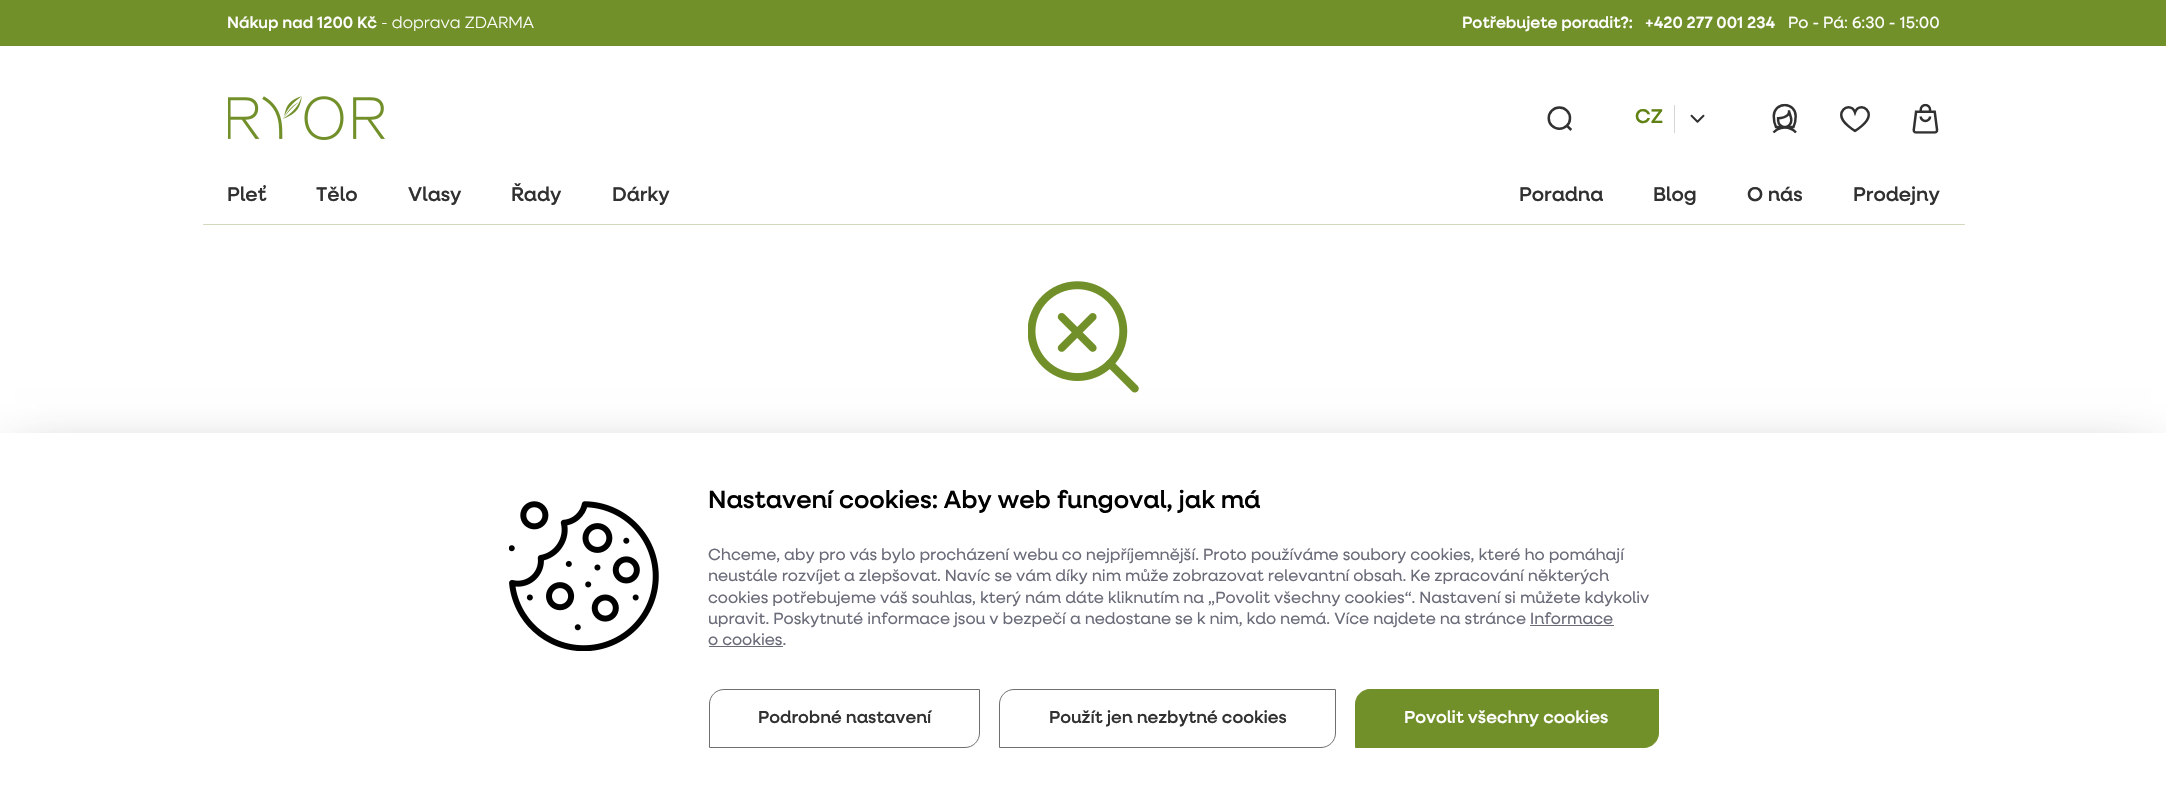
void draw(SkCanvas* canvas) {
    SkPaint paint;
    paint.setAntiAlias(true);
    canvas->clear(0xFFFFFFFF);
    paint.setColor(0xFF72902A);
    canvas->drawRect(SkRect::MakeXYWH(0, 0, 2166, 46), paint);
    SkFont font1(fontMgr->matchFamilyStyle("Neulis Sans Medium", SkFontStyle(500, SkFontStyle::kNormal_Width, SkFontStyle::kUpright_Slant)), 16.25f);
    font1.setSubpixel(true);
    paint.setColor(0xFFFFFFFF);
    canvas->drawString("Nákup nad 1200 Kč", 227, 28, font1, paint);
    SkFont font2(fontMgr->matchFamilyStyle("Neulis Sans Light", SkFontStyle(300, SkFontStyle::kNormal_Width, SkFontStyle::kUpright_Slant)), 16.25f);
    font2.setSubpixel(true);
    canvas->drawString("- doprava ZDARMA", 381, 28, font2, paint);
    SkFont font3(fontMgr->matchFamilyStyle("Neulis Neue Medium", SkFontStyle(500, SkFontStyle::kNormal_Width, SkFontStyle::kUpright_Slant)), 16.25f);
    font3.setSubpixel(true);
    canvas->drawString("Potřebujete poradit?:", 1462, 28, font3, paint);
    canvas->drawString("+420 277 001 234", 1645, 28, font3, paint);
    SkFont font4(fontMgr->matchFamilyStyle("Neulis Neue", SkFontStyle::Normal()), 16.25f);
    font4.setSubpixel(true);
    canvas->drawString("Po - Pá: 6:30 - 15:00", 1788, 28, font4, paint);
    canvas->drawImageRect(SkImages::DeferredFromEncodedData(SkData::MakeFromFileName("img1.png")), SkRect::MakeXYWH(228, 96, 157, 44), SkSamplingOptions());
    canvas->drawImageRect(SkImages::DeferredFromEncodedData(SkData::MakeFromFileName("img2.png")), SkRect::MakeXYWH(1547, 106, 25, 25), SkSamplingOptions());
    paint.setColor(0xFFD6D6D6);
    canvas->drawRect(SkRect::MakeXYWH(1674, 105, 1, 28), paint);
    SkFont font5(fontMgr->matchFamilyStyle("Neulis Neue Medium", SkFontStyle(500, SkFontStyle::kNormal_Width, SkFontStyle::kUpright_Slant)), 20);
    font5.setSubpixel(true);
    paint.setColor(0xFF608113);
    canvas->drawString("CZ", 1635, 123, font5, paint);
    canvas->drawImageRect(SkImages::DeferredFromEncodedData(SkData::MakeFromFileName("img3.png")), SkRect::MakeXYWH(1690, 114, 15, 9), SkSamplingOptions());
    canvas->drawImageRect(SkImages::DeferredFromEncodedData(SkData::MakeFromFileName("img4.png")), SkRect::MakeXYWH(1772, 103, 25, 31), SkSamplingOptions());
    canvas->drawImageRect(SkImages::DeferredFromEncodedData(SkData::MakeFromFileName("img5.png")), SkRect::MakeXYWH(1840, 106, 30, 27), SkSamplingOptions());
    canvas->drawImageRect(SkImages::DeferredFromEncodedData(SkData::MakeFromFileName("img6.png")), SkRect::MakeXYWH(1912, 103, 27, 31), SkSamplingOptions());
    paint.setColor(0xFFD1DBBB);
    canvas->drawRect(SkRect::MakeXYWH(203, 224, 1762, 1), paint);
    paint.setColor(0xFF313131);
    canvas->drawString("Pleť", 227, 201, font5, paint);
    canvas->drawString("Tělo", 316, 201, font5, paint);
    canvas->drawString("Vlasy", 408, 201, font5, paint);
    canvas->drawString("Řady", 511, 201, font5, paint);
    canvas->drawString("Dárky", 612, 201, font5, paint);
    canvas->drawString("Poradna", 1519, 201, font5, paint);
    canvas->drawString("Blog", 1653, 201, font5, paint);
    canvas->drawString("O nás", 1747, 201, font5, paint);
    canvas->drawString("Prodejny", 1853, 201, font5, paint);
    canvas->drawImageRect(SkImages::DeferredFromEncodedData(SkData::MakeFromFileName("img7.png")), SkRect::MakeXYWH(1028, 281, 111, 112), SkSamplingOptions());
    paint.setMaskFilter(SkMaskFilter::MakeBlur(kNormal_SkBlurStyle, 31));
    canvas->drawRect(SkRect::MakeXYWH(15, 479, 2136, 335), paint);
    paint.setMaskFilter(nullptr);
    paint.setColor(0xFFFFFFFF);
    canvas->drawRect(SkRect::MakeXYWH(0, 433, 2166, 364), paint);
    canvas->drawImageRect(SkImages::DeferredFromEncodedData(SkData::MakeFromFileName("img8.png")), SkRect::MakeXYWH(509, 501, 150, 150), SkSamplingOptions());
    SkFont font6(fontMgr->matchFamilyStyle("Neulis Neue Medium", SkFontStyle(500, SkFontStyle::kNormal_Width, SkFontStyle::kUpright_Slant)), 25);
    font6.setSubpixel(true);
    paint.setColor(0xFF000000);
    canvas->drawString("Nastavení cookies: Aby web fungoval, jak má", 708, 508, font6, paint);
    paint.setColor(0xFF696B78);
    canvas->drawString("Chceme, aby pro vás bylo procházení webu co nejpříjemnější. Proto používáme soubory cookies, které ho pomáhají", 708, 560, font4, paint);
    canvas->drawString("neustále rozvíjet a zlepšovat. Navíc se vám díky nim může zobrazovat relevantní obsah. Ke zpracování některých", 708, 581, font4, paint);
    canvas->drawString("cookies potřebujeme váš souhlas, který nám dáte kliknutím na „Povolit všechny cookies“. Nastavení si můžete kdykoliv", 708, 603, font4, paint);
    canvas->drawString("upravit. Poskytnuté informace jsou v bezpečí a nedostane se k nim, kdo nemá. Více najdete na stránce Informace", 708, 624, font4, paint);
    canvas->drawString("o cookies.", 708, 645, font4, paint);
    canvas->drawRect(SkRect::MakeXYWH(1530, 625, 84, 1), paint);
    canvas->drawRect(SkRect::MakeXYWH(709, 646, 74, 1), paint);
    paint.setStyle(SkPaint::kStroke_Style);
    paint.setStrokeWidth(1);
    paint.setColor(0xFF6F6F6F);
    canvas->drawPath(SkPathBuilder().moveTo(724, 689.5f).lineTo(979.5f, 689.5f).lineTo(979.5f, 733).cubicTo(979.5f, 741, 973, 747.5f, 965, 747.5f).lineTo(709.5f, 747.5f).lineTo(709.5f, 704).cubicTo(709.5f, 696, 716, 689.5f, 724, 689.5f).close().detach(), paint);
    SkFont font7(fontMgr->matchFamilyStyle("Neulis Neue Medium", SkFontStyle(500, SkFontStyle::kNormal_Width, SkFontStyle::kUpright_Slant)), 17.5f);
    font7.setSubpixel(true);
    paint.setStyle(SkPaint::kFill_Style);
    paint.setColor(0xFF313131);
    canvas->drawString("Podrobné nastavení", 758, 723, font7, paint);
    paint.setStyle(SkPaint::kStroke_Style);
    paint.setColor(0xFF6F6F6F);
    canvas->drawPath(SkPathBuilder().moveTo(1014, 689.5f).lineTo(1335.5f, 689.5f).lineTo(1335.5f, 733).cubicTo(1335.5f, 741, 1329, 747.5f, 1321, 747.5f).lineTo(999.5f, 747.5f).lineTo(999.5f, 704).cubicTo(999.5f, 696, 1006, 689.5f, 1014, 689.5f).close().detach(), paint);
    paint.setStyle(SkPaint::kFill_Style);
    paint.setColor(0xFF313131);
    canvas->drawString("Použít jen nezbytné cookies", 1049, 723, font7, paint);
    paint.setColor(0xFF72902A);
    canvas->drawPath(SkPathBuilder().moveTo(1370, 689.5f).lineTo(1658.5f, 689.5f).lineTo(1658.5f, 733).cubicTo(1658.5f, 741, 1652, 747.5f, 1644, 747.5f).lineTo(1355.5f, 747.5f).lineTo(1355.5f, 704).cubicTo(1355.5f, 696, 1362, 689.5f, 1370, 689.5f).close().detach(), paint);
    paint.setStyle(SkPaint::kStroke_Style);
    canvas->drawPath(SkPathBuilder().moveTo(1370, 689.5f).lineTo(1658.5f, 689.5f).lineTo(1658.5f, 733).cubicTo(1658.5f, 741, 1652, 747.5f, 1644, 747.5f).lineTo(1355.5f, 747.5f).lineTo(1355.5f, 704).cubicTo(1355.5f, 696, 1362, 689.5f, 1370, 689.5f).close().detach(), paint);
    paint.setStyle(SkPaint::kFill_Style);
    paint.setColor(0xFFFFFFFF);
    canvas->drawString("Povolit všechny cookies", 1404, 723, font7, paint);
}
